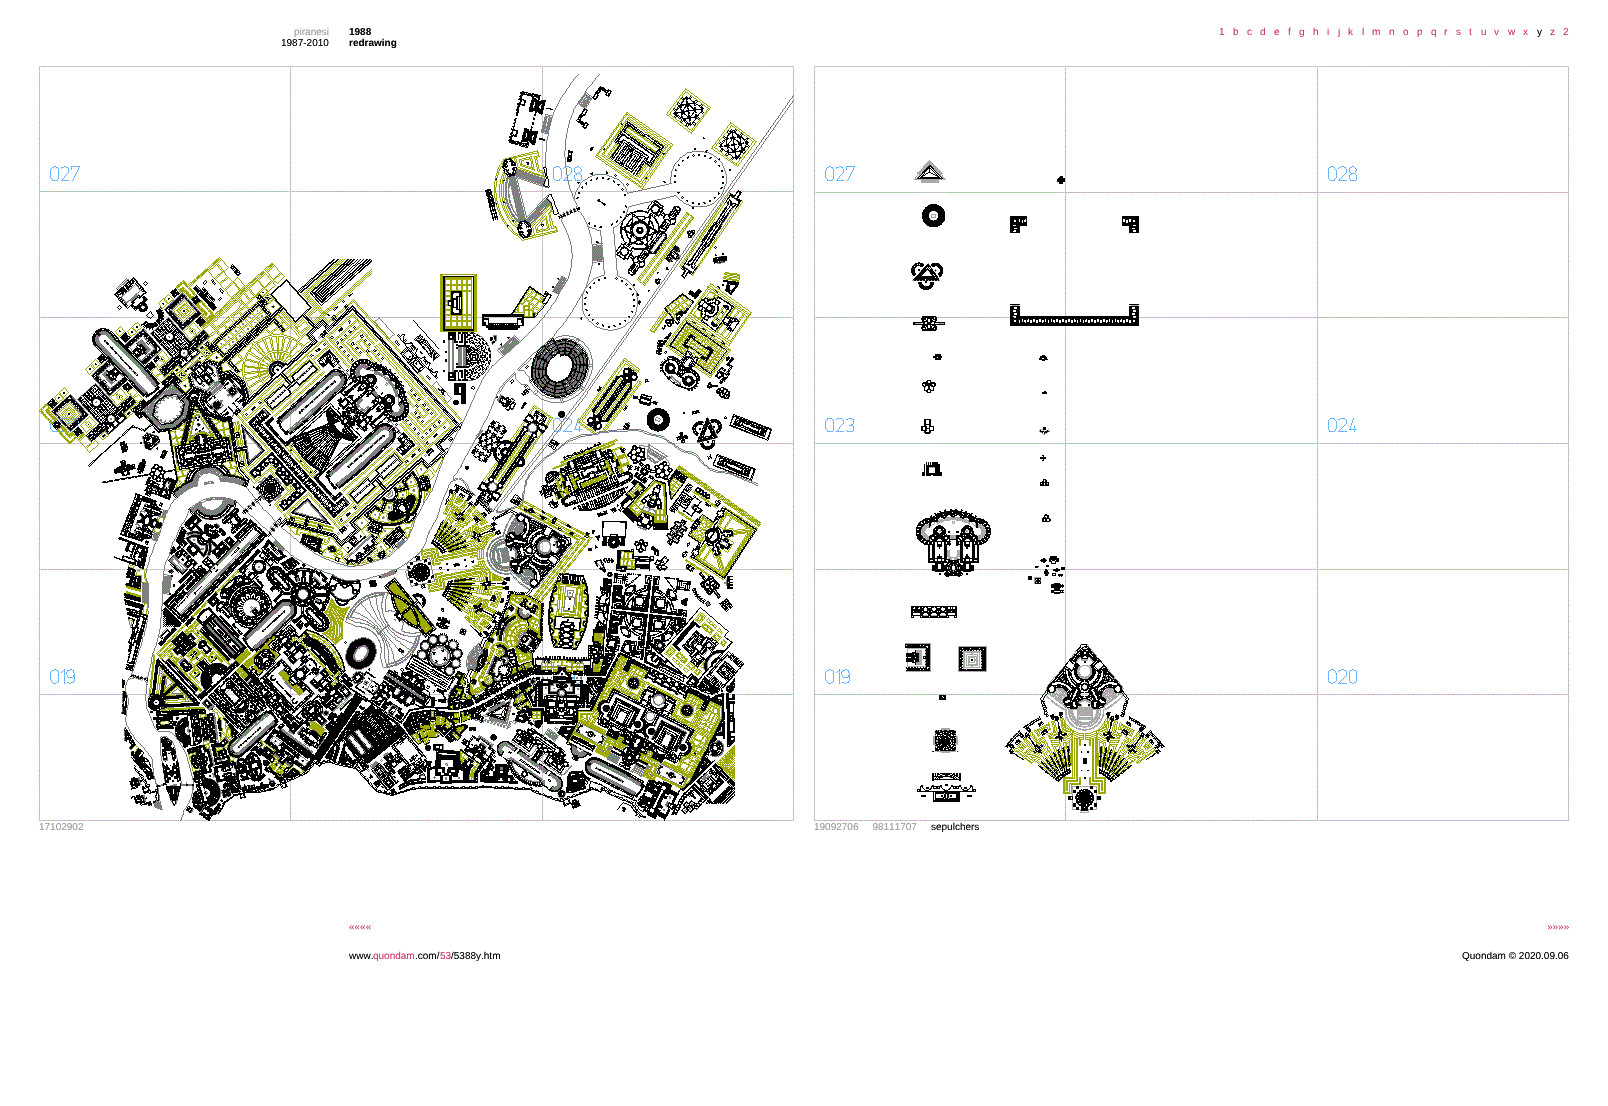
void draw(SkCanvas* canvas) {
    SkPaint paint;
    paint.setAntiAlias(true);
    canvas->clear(0xFFFFFFFF);
    SkFont font1(fontMgr->matchFamilyStyle("Liberation Sans", SkFontStyle::Normal()), 10);
    font1.setSubpixel(true);
    paint.setColor(0xFF999990);
    canvas->drawString("piranesi", 294, 35, font1, paint);
    paint.setColor(0xFF000000);
    canvas->drawString("1987-2010", 281, 46, font1, paint);
    SkFont font2(fontMgr->matchFamilyStyle("Liberation Sans", SkFontStyle::Bold()), 10);
    font2.setSubpixel(true);
    canvas->drawString("1988", 349, 35, font2, paint);
    canvas->drawString("redrawing", 349, 46, font2, paint);
    paint.setColor(0xFFCC3366);
    canvas->drawString("1", 1219, 35, font1, paint);
    canvas->drawString("b", 1233, 35, font1, paint);
    canvas->drawString("c", 1247, 35, font1, paint);
    canvas->drawString("d", 1260, 35, font1, paint);
    canvas->drawString("e", 1274, 35, font1, paint);
    canvas->drawString("f", 1288, 35, font1, paint);
    canvas->drawString("g", 1299, 35, font1, paint);
    canvas->drawString("h", 1313, 35, font1, paint);
    canvas->drawString("i", 1327, 35, font1, paint);
    canvas->drawString("j", 1338, 35, font1, paint);
    canvas->drawString("k", 1348, 35, font1, paint);
    canvas->drawString("l", 1362, 35, font1, paint);
    canvas->drawString("m", 1372, 35, font1, paint);
    canvas->drawString("n", 1389, 35, font1, paint);
    canvas->drawString("o", 1403, 35, font1, paint);
    canvas->drawString("p", 1417, 35, font1, paint);
    canvas->drawString("q", 1431, 35, font1, paint);
    canvas->drawString("r", 1444, 35, font1, paint);
    canvas->drawString("s", 1456, 35, font1, paint);
    canvas->drawString("t", 1469, 35, font1, paint);
    canvas->drawString("u", 1481, 35, font1, paint);
    canvas->drawString("v", 1494, 35, font1, paint);
    canvas->drawString("w", 1508, 35, font1, paint);
    canvas->drawString("x", 1523, 35, font1, paint);
    paint.setColor(0xFF000000);
    canvas->drawString("y", 1537, 35, font1, paint);
    paint.setColor(0xFFCC3366);
    canvas->drawString("z", 1550, 35, font1, paint);
    canvas->drawString("2", 1563, 35, font1, paint);
    canvas->drawImageRect(SkImages::DeferredFromEncodedData(SkData::MakeFromFileName("img1.png")), SkRect::MakeXYWH(39, 66, 755, 755), SkSamplingOptions());
    paint.setColor(0xFF999999);
    canvas->drawString("17102902", 39, 830, font1, paint);
    canvas->drawImageRect(SkImages::DeferredFromEncodedData(SkData::MakeFromFileName("img2.png")), SkRect::MakeXYWH(814, 66, 755, 755), SkSamplingOptions());
    canvas->drawString("19092706     98111707", 814, 830, font1, paint);
    paint.setColor(0xFF000000);
    canvas->drawString("sepulchers", 931, 830, font1, paint);
    paint.setColor(0xFFCC3366);
    canvas->drawString("««««", 349, 930, font1, paint);
    canvas->drawString("»»»»", 1547, 930, font1, paint);
    paint.setColor(0xFF000000);
    canvas->drawString("www.", 349, 959, font1, paint);
    paint.setColor(0xFFCC3366);
    canvas->drawString("quondam", 373, 959, font1, paint);
    paint.setColor(0xFF000000);
    canvas->drawString(".com/", 415, 959, font1, paint);
    paint.setColor(0xFFCC3366);
    canvas->drawString("53", 440, 959, font1, paint);
    paint.setColor(0xFF000000);
    canvas->drawString("/5388y.htm", 451, 959, font1, paint);
    canvas->drawString("Quondam © 2020.09.06", 1462, 959, font1, paint);
}
